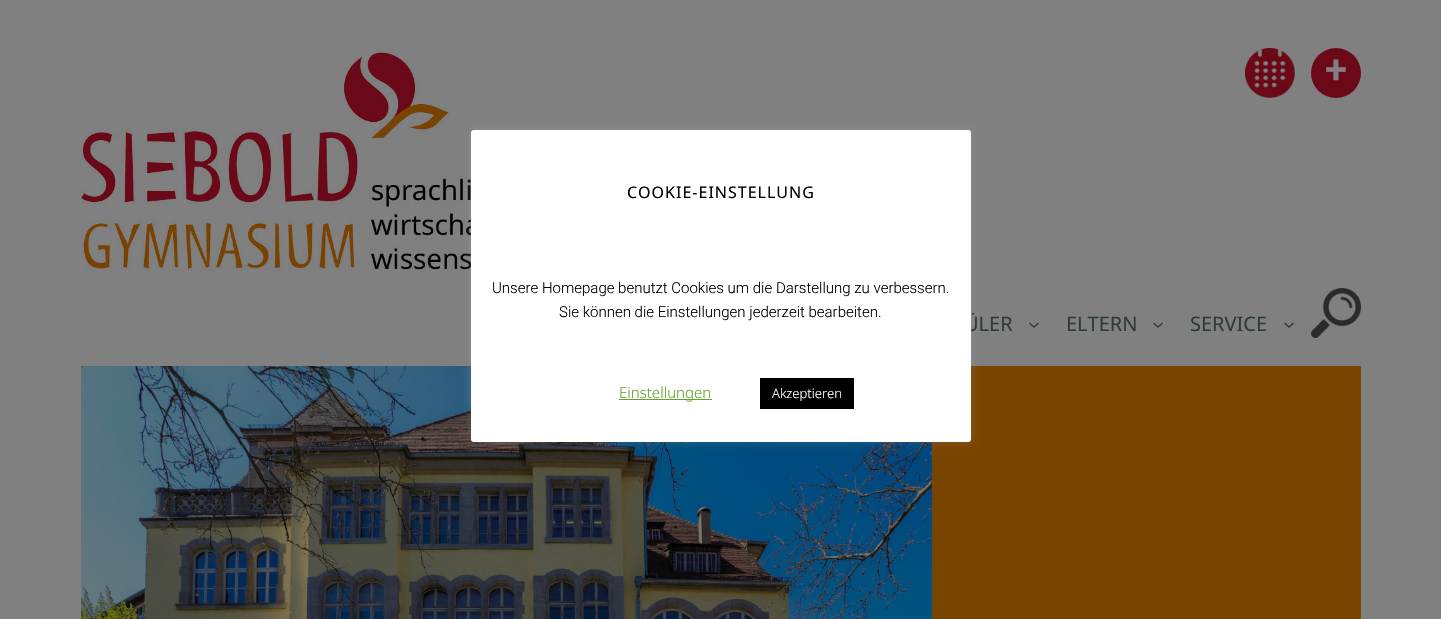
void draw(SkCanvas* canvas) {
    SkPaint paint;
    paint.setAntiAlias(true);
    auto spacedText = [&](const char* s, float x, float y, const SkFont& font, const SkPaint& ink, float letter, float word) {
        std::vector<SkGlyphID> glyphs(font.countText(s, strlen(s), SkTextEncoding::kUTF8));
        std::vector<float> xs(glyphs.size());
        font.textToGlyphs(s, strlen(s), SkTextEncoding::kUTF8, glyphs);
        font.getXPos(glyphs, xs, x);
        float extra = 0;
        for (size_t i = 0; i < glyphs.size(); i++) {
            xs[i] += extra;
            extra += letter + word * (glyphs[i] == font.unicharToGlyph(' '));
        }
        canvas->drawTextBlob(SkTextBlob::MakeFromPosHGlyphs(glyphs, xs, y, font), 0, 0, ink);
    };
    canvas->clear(0xFF808080);
    canvas->drawImageRect(SkImages::DeferredFromEncodedData(SkData::MakeFromFileName("img1.png")), SkRect::MakeXYWH(81, 49, 500, 221), SkSamplingOptions());
    paint.setColor(0xFF794400);
    canvas->drawRect(SkRect::MakeXYWH(81, 366, 1280, 253), paint);
    canvas->drawImageRect(SkImages::DeferredFromEncodedData(SkData::MakeFromFileName("img4.png")), SkRect::MakeXYWH(81, 366, 851, 253), SkSamplingOptions());
    paint.setColor(0x4DACABAB);
    paint.setMaskFilter(SkMaskFilter::MakeBlur(kNormal_SkBlurStyle, 5));
    canvas->drawRoundRect(SkRect::MakeXYWH(471, 129, 500, 312), 3, 3, paint);
    paint.setMaskFilter(nullptr);
    SkFont font1(fontMgr->matchFamilyStyle("Noto Sans", SkFontStyle::Normal()), 20);
    font1.setSubpixel(true);
    paint.setColor(0xFF303A3A);
    canvas->drawString("ÜLER", 964, 331, font1, paint);
    paint.setColor(0xFFFFFFFF);
    canvas->drawRoundRect(SkRect::MakeXYWH(471, 130, 500, 312), 3, 3, paint);
    SkFont font2(fontMgr->matchFamilyStyle("Noto Sans", SkFontStyle::Normal()), 16);
    font2.setSubpixel(true);
    paint.setColor(0xFF000000);
    spacedText("COOKIE-EINSTELLUNG", 627, 198, font2, paint, 1, 0);
    SkFont font3(fontMgr->matchFamilyStyle("Roboto", SkFontStyle(300, SkFontStyle::kNormal_Width, SkFontStyle::kUpright_Slant)), 15);
    font3.setSubpixel(true);
    canvas->drawString("Unsere Homepage benutzt Cookies um die Darstellung zu verbessern.", 492, 293, font3, paint);
    canvas->drawString("Sie können die Einstellungen jederzeit bearbeiten.", 559, 317, font3, paint);
    paint.setColor(0xFF62A329);
    canvas->drawRect(SkRect::MakeXYWH(619, 399, 93, 1), paint);
    SkFont font4(fontMgr->matchFamilyStyle("Noto Sans", SkFontStyle(300, SkFontStyle::kNormal_Width, SkFontStyle::kUpright_Slant)), 15);
    font4.setSubpixel(true);
    canvas->drawString("Einstellungen", 619, 398, font4, paint);
    paint.setColor(0xFF000000);
    canvas->drawRect(SkRect::MakeXYWH(760, 378, 94, 31), paint);
    SkFont font5(fontMgr->matchFamilyStyle("Noto Sans", SkFontStyle(300, SkFontStyle::kNormal_Width, SkFontStyle::kUpright_Slant)), 13);
    font5.setSubpixel(true);
    paint.setColor(0xFFFFFFFF);
    canvas->drawString("Akzeptieren", 772, 398, font5, paint);
    canvas->drawImageRect(SkImages::DeferredFromEncodedData(SkData::MakeFromFileName("img2.png")), SkRect::MakeXYWH(1245, 48, 50, 50), SkSamplingOptions());
    paint.setColor(0xFF6B0918);
    canvas->drawCircle(1336, 73, 25, paint);
    SkFont font6(fontMgr->matchFamilyStyle("Roboto", SkFontStyle(600, SkFontStyle::kNormal_Width, SkFontStyle::kUpright_Slant)), 40);
    font6.setSubpixel(true);
    paint.setColor(0xFF808080);
    canvas->drawString("+", 1325, 83, font6, paint);
    paint.setStyle(SkPaint::kStroke_Style);
    paint.setStrokeWidth(1.5f);
    paint.setColor(0xFF303A3A);
    canvas->drawPath(SkPathBuilder().moveTo(1029.5f, 323).lineTo(1034, 327).lineTo(1038.5f, 323).detach(), paint);
    paint.setStyle(SkPaint::kFill_Style);
    canvas->drawString("ELTERN", 1066, 331, font1, paint);
    paint.setStyle(SkPaint::kStroke_Style);
    canvas->drawPath(SkPathBuilder().moveTo(1153.5f, 323).lineTo(1158, 327).lineTo(1162.5f, 323).detach(), paint);
    paint.setStyle(SkPaint::kFill_Style);
    canvas->drawString("SERVICE", 1190, 331, font1, paint);
    paint.setStyle(SkPaint::kStroke_Style);
    canvas->drawPath(SkPathBuilder().moveTo(1284.5f, 323).lineTo(1289, 327).lineTo(1293.5f, 323).detach(), paint);
    canvas->drawImageRect(SkImages::DeferredFromEncodedData(SkData::MakeFromFileName("img3.png")), SkRect::MakeXYWH(1311, 288, 50, 50), SkSamplingOptions());
}
